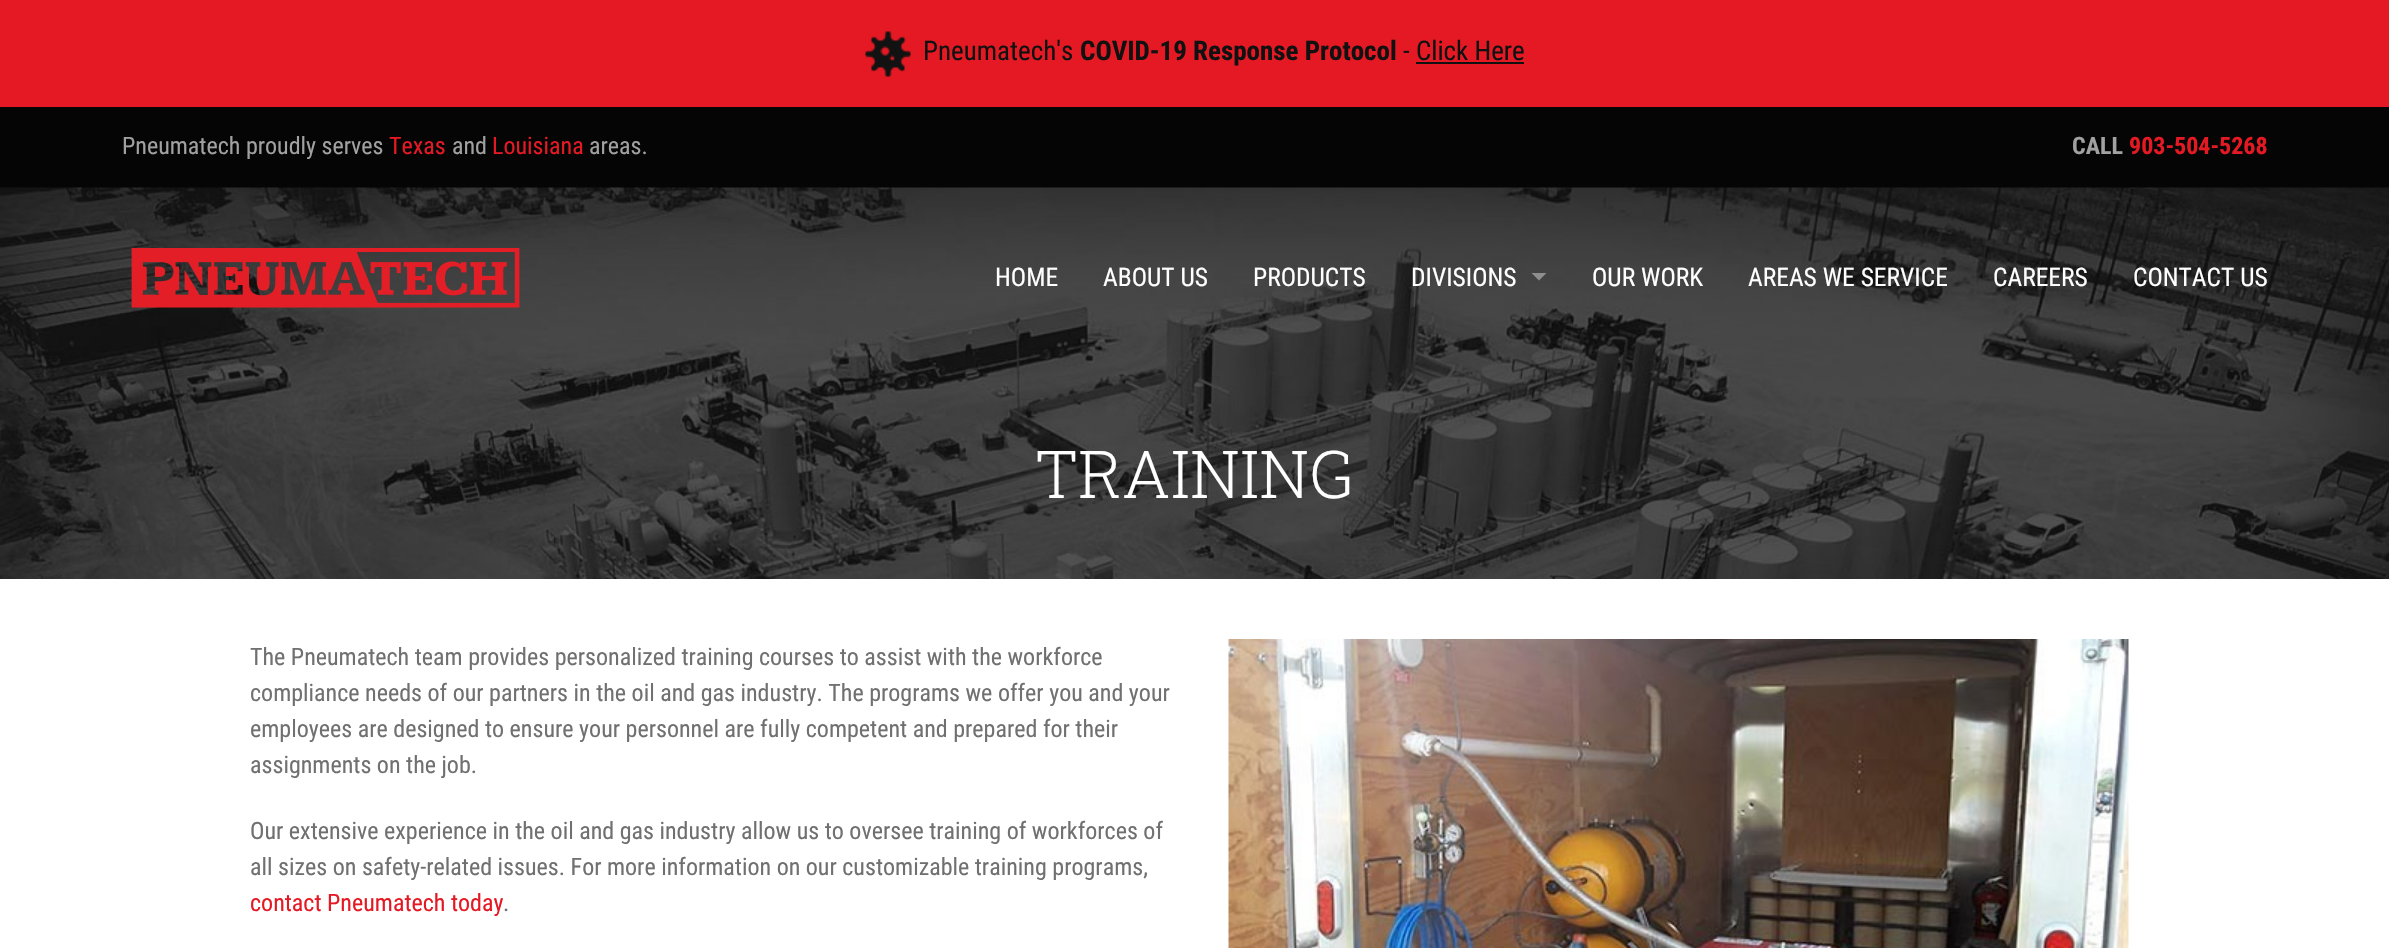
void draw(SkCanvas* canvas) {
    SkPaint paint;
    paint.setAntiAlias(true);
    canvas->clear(0xFFFFFFFF);
    paint.setColor(0xFFE51923);
    canvas->drawRect(SkRect::MakeXYWH(0, 0, 2389, 107), paint);
    canvas->drawImageRect(SkImages::DeferredFromEncodedData(SkData::MakeFromFileName("img1.png")), SkRect::MakeXYWH(865, 31, 46, 46), SkSamplingOptions());
    SkFont font1(fontMgr->matchFamilyStyle("Roboto Condensed", SkFontStyle::Normal()), 27);
    font1.setSubpixel(true);
    paint.setColor(0xFF111111);
    canvas->drawString("Pneumatech's", 923, 60, font1, paint);
    SkFont font2(fontMgr->matchFamilyStyle("Roboto Condensed", SkFontStyle::Bold()), 27);
    font2.setSubpixel(true);
    canvas->drawString("COVID-19 Response Protocol", 1080, 60, font2, paint);
    canvas->drawString("- Click Here", 1403, 60, font1, paint);
    canvas->drawRect(SkRect::MakeXYWH(1416, 62, 108, 2), paint);
    paint.setColor(0xFF050505);
    canvas->drawRect(SkRect::MakeXYWH(0, 107, 2389, 81), paint);
    SkFont font3(fontMgr->matchFamilyStyle("Roboto Condensed", SkFontStyle::Normal()), 24);
    font3.setSubpixel(true);
    paint.setColor(0xFFA1A1A1);
    canvas->drawString("Pneumatech proudly serves", 122, 154, font3, paint);
    paint.setColor(0xFFE51923);
    canvas->drawString("Texas", 389, 154, font3, paint);
    paint.setColor(0xFFA1A1A1);
    canvas->drawString("and", 452, 154, font3, paint);
    paint.setColor(0xFFE51923);
    canvas->drawString("Louisiana", 492, 154, font3, paint);
    paint.setColor(0xFFA1A1A1);
    canvas->drawString("areas.", 589, 154, font3, paint);
    SkFont font4(fontMgr->matchFamilyStyle("Roboto Condensed", SkFontStyle::Bold()), 24);
    font4.setSubpixel(true);
    canvas->drawString("CALL", 2072, 154, font4, paint);
    paint.setColor(0xFFE51923);
    canvas->drawString("903-504-5268", 2129, 154, font4, paint);
    canvas->drawImageRect(SkImages::DeferredFromEncodedData(SkData::MakeFromFileName("img3.png")), SkRect::MakeXYWH(0, 187, 2389, 392), SkSamplingOptions());
    canvas->drawImageRect(SkImages::DeferredFromEncodedData(SkData::MakeFromFileName("img2.png")), SkRect::MakeXYWH(131, 248, 389, 60), SkSamplingOptions());
    SkFont font5(fontMgr->matchFamilyStyle("Roboto Condensed", SkFontStyle::Normal()), 25.5f);
    font5.setSubpixel(true);
    paint.setColor(0xFFFFFFFF);
    canvas->drawString("HOME", 995, 286, font5, paint);
    canvas->drawString("ABOUT US", 1103, 286, font5, paint);
    canvas->drawString("PRODUCTS", 1253, 286, font5, paint);
    canvas->drawString("DIVISIONS", 1411, 286, font5, paint);
    paint.setColor(0xFF8E8E8E);
    canvas->drawPath(SkPathBuilder().moveTo(1531.5f, 273).lineTo(1546.5f, 273).lineTo(1539, 280.5f).close().detach(), paint);
    paint.setColor(0xFFFFFFFF);
    canvas->drawString("OUR WORK", 1592, 286, font5, paint);
    canvas->drawString("AREAS WE SERVICE", 1748, 286, font5, paint);
    canvas->drawString("CAREERS", 1993, 286, font5, paint);
    canvas->drawString("CONTACT US", 2133, 286, font5, paint);
    SkFont font6(fontMgr->matchFamilyStyle("Roboto Slab", SkFontStyle(300, SkFontStyle::kNormal_Width, SkFontStyle::kUpright_Slant)), 66);
    font6.setSubpixel(true);
    canvas->drawString("TRAINING", 1035, 498, font6, paint);
    paint.setColor(0xFF707070);
    canvas->drawString("The Pneumatech team provides personalized training courses to assist with the workforce", 250, 665, font3, paint);
    canvas->drawString("compliance needs of our partners in the oil and gas industry. The programs we offer you and your", 250, 701, font3, paint);
    canvas->drawString("employees are designed to ensure your personnel are fully competent and prepared for their", 250, 737, font3, paint);
    canvas->drawString("assignments on the job.", 250, 773, font3, paint);
    canvas->drawString("Our extensive experience in the oil and gas industry allow us to oversee training of workforces of", 250, 839, font3, paint);
    canvas->drawString("all sizes on safety-related issues. For more information on our customizable training programs,", 250, 875, font3, paint);
    paint.setColor(0xFFE51923);
    canvas->drawString("contact Pneumatech today", 250, 911, font3, paint);
    paint.setColor(0xFF707070);
    canvas->drawString(".", 503, 911, font3, paint);
    canvas->drawImageRect(SkImages::DeferredFromEncodedData(SkData::MakeFromFileName("img4.png")), SkRect::MakeXYWH(1228, 639, 901, 309), SkSamplingOptions());
}
